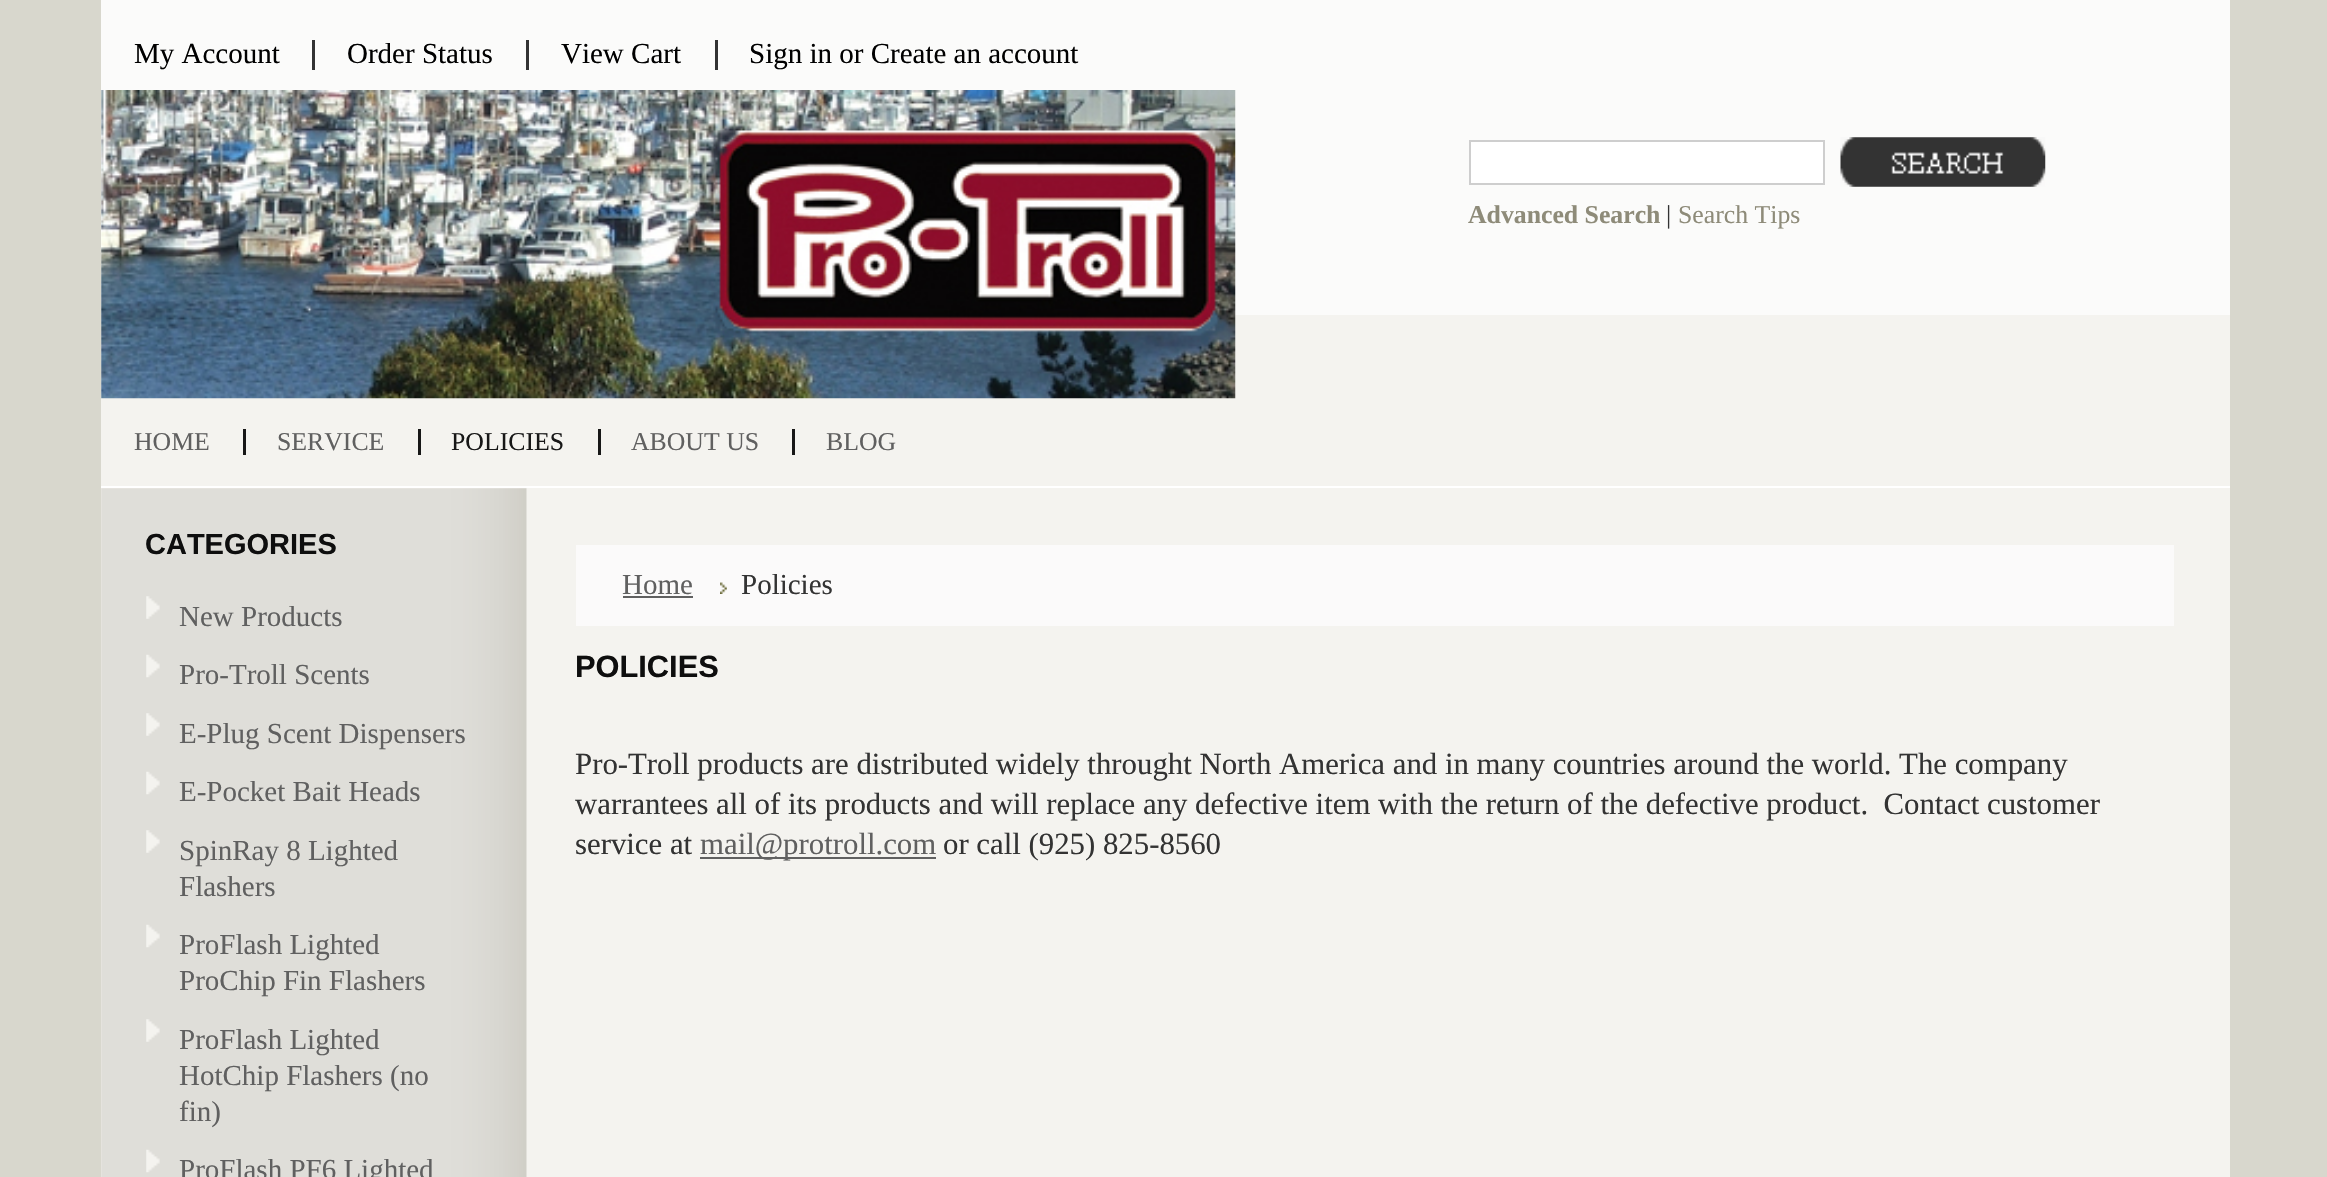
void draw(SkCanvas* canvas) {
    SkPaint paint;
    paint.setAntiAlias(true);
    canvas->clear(0xFFD8D7CD);
    paint.setColor(0xFFFBFBFA);
    canvas->drawRect(SkRect::MakeXYWH(101, 0, 2129, 315), paint);
    SkFont font1(fontMgr->matchFamilyStyle("Liberation Serif", SkFontStyle::Normal()), 29);
    font1.setSubpixel(true);
    paint.setColor(0xFF000000);
    canvas->drawString("My Account", 134, 63, font1, paint);
    paint.setColor(0xFF333333);
    canvas->drawRect(SkRect::MakeXYWH(312, 40, 3, 30), paint);
    paint.setColor(0xFF000000);
    canvas->drawString("Order Status", 347, 63, font1, paint);
    paint.setColor(0xFF333333);
    canvas->drawRect(SkRect::MakeXYWH(526, 40, 3, 30), paint);
    paint.setColor(0xFF000000);
    canvas->drawString("View Cart", 561, 63, font1, paint);
    paint.setColor(0xFF333333);
    canvas->drawRect(SkRect::MakeXYWH(715, 40, 3, 30), paint);
    paint.setColor(0xFF000000);
    canvas->drawString("Sign in or Create an account", 749, 63, font1, paint);
    paint.setColor(0xFFF4F3EF);
    canvas->drawRect(SkRect::MakeXYWH(101, 315, 2129, 862), paint);
    canvas->drawImageRect(SkImages::DeferredFromEncodedData(SkData::MakeFromFileName("img1.png")), SkRect::MakeXYWH(101, 90, 1135, 309), SkSamplingOptions());
    paint.setColor(0xFFFFFFFF);
    canvas->drawRect(SkRect::MakeXYWH(1470, 141, 354, 43), paint);
    paint.setStyle(SkPaint::kStroke_Style);
    paint.setStrokeWidth(2);
    paint.setColor(0xFFCECECE);
    canvas->drawRect(SkRect::MakeXYWH(1470, 141, 354, 43), paint);
    canvas->drawImageRect(SkImages::DeferredFromEncodedData(SkData::MakeFromFileName("img2.png")), SkRect::MakeXYWH(1840, 137, 206, 50), SkSamplingOptions());
    SkFont font2(fontMgr->matchFamilyStyle("Liberation Serif", SkFontStyle::Bold()), 25.75f);
    font2.setSubpixel(true);
    paint.setStyle(SkPaint::kFill_Style);
    paint.setColor(0xFF8E8B79);
    canvas->drawString("Advanced Search", 1468, 223, font2, paint);
    SkFont font3(fontMgr->matchFamilyStyle("Liberation Serif", SkFontStyle::Normal()), 25.75f);
    font3.setSubpixel(true);
    paint.setColor(0xFF333333);
    canvas->drawString("|", 1666, 223, font3, paint);
    paint.setColor(0xFF8E8B79);
    canvas->drawString("Search Tips", 1678, 223, font3, paint);
    paint.setColor(0xFFFFFFFF);
    canvas->drawRect(SkRect::MakeXYWH(101, 486, 2129, 2), paint);
    paint.setColor(0xFF606060);
    canvas->drawString("HOME", 134, 450, font3, paint);
    paint.setColor(0xFF171717);
    canvas->drawRect(SkRect::MakeXYWH(243, 429, 3, 26), paint);
    paint.setColor(0xFF606060);
    canvas->drawString("SERVICE", 277, 450, font3, paint);
    paint.setColor(0xFF171717);
    canvas->drawRect(SkRect::MakeXYWH(418, 429, 3, 26), paint);
    canvas->drawString("POLICIES", 451, 450, font3, paint);
    canvas->drawRect(SkRect::MakeXYWH(598, 429, 3, 26), paint);
    paint.setColor(0xFF606060);
    canvas->drawString("ABOUT US", 631, 450, font3, paint);
    paint.setColor(0xFF171717);
    canvas->drawRect(SkRect::MakeXYWH(792, 429, 3, 26), paint);
    paint.setColor(0xFF606060);
    canvas->drawString("BLOG", 826, 450, font3, paint);
    canvas->drawImageRect(SkImages::DeferredFromEncodedData(SkData::MakeFromFileName("img3.png")), SkRect::MakeXYWH(101, 488, 426, 689), SkSamplingOptions());
    SkFont font4(fontMgr->matchFamilyStyle("Liberation Sans", SkFontStyle::Bold()), 29);
    font4.setSubpixel(true);
    paint.setColor(0xFF0E0E0E);
    canvas->drawString("CATEGORIES", 145, 554, font4, paint);
    canvas->drawImageRect(SkImages::DeferredFromEncodedData(SkData::MakeFromFileName("img4.png")), SkRect::MakeXYWH(146, 596, 14, 23), SkSamplingOptions());
    paint.setColor(0xFF606060);
    canvas->drawString("New Products", 179, 626, font1, paint);
    canvas->drawImageRect(SkImages::DeferredFromEncodedData(SkData::MakeFromFileName("img5.png")), SkRect::MakeXYWH(146, 654, 14, 24), SkSamplingOptions());
    canvas->drawString("Pro-Troll Scents", 179, 684, font1, paint);
    canvas->drawImageRect(SkImages::DeferredFromEncodedData(SkData::MakeFromFileName("img4.png")), SkRect::MakeXYWH(146, 713, 14, 23), SkSamplingOptions());
    canvas->drawString("E-Plug Scent Dispensers", 179, 743, font1, paint);
    canvas->drawImageRect(SkImages::DeferredFromEncodedData(SkData::MakeFromFileName("img6.png")), SkRect::MakeXYWH(146, 771, 14, 24), SkSamplingOptions());
    canvas->drawString("E-Pocket Bait Heads", 179, 801, font1, paint);
    canvas->drawImageRect(SkImages::DeferredFromEncodedData(SkData::MakeFromFileName("img7.png")), SkRect::MakeXYWH(146, 830, 14, 23), SkSamplingOptions());
    canvas->drawString("SpinRay 8 Lighted", 179, 860, font1, paint);
    canvas->drawString("Flashers", 179, 896, font1, paint);
    canvas->drawImageRect(SkImages::DeferredFromEncodedData(SkData::MakeFromFileName("img5.png")), SkRect::MakeXYWH(146, 924, 14, 24), SkSamplingOptions());
    canvas->drawString("ProFlash Lighted", 179, 954, font1, paint);
    canvas->drawString("ProChip Fin Flashers", 179, 990, font1, paint);
    canvas->drawImageRect(SkImages::DeferredFromEncodedData(SkData::MakeFromFileName("img4.png")), SkRect::MakeXYWH(146, 1019, 14, 23), SkSamplingOptions());
    canvas->drawString("ProFlash Lighted", 179, 1049, font1, paint);
    canvas->drawString("HotChip Flashers (no", 179, 1085, font1, paint);
    canvas->drawString("fin)", 179, 1121, font1, paint);
    canvas->drawImageRect(SkImages::DeferredFromEncodedData(SkData::MakeFromFileName("img6.png")), SkRect::MakeXYWH(146, 1149, 14, 24), SkSamplingOptions());
    canvas->drawString("ProFlash PF6 Lighted", 179, 1179, font1, paint);
    paint.setColor(0xFFFBFAFA);
    canvas->drawRect(SkRect::MakeXYWH(576, 545, 1598, 81), paint);
    paint.setColor(0xFF606060);
    canvas->drawString("Home", 622, 594, font1, paint);
    canvas->drawRect(SkRect::MakeXYWH(623, 596, 70, 2), paint);
    canvas->drawImageRect(SkImages::DeferredFromEncodedData(SkData::MakeFromFileName("img8.png")), SkRect::MakeXYWH(720, 582, 7, 12), SkSamplingOptions());
    paint.setColor(0xFF333333);
    canvas->drawString("Policies", 741, 594, font1, paint);
    SkFont font5(fontMgr->matchFamilyStyle("Liberation Sans", SkFontStyle::Bold()), 30.8f);
    font5.setSubpixel(true);
    paint.setColor(0xFF0E0E0E);
    canvas->drawString("POLICIES", 575, 677, font5, paint);
    SkFont font6(fontMgr->matchFamilyStyle("Liberation Serif", SkFontStyle::Normal()), 30.8f);
    font6.setSubpixel(true);
    paint.setColor(0xFF333333);
    canvas->drawString("Pro-Troll products are distributed widely throught North America and in many countries around the world. The company", 575, 774, font6, paint);
    canvas->drawString("warrantees all of its products and will replace any defective item with the return of the defective product.  Contact customer", 575, 814, font6, paint);
    canvas->drawString("service at", 575, 854, font6, paint);
    paint.setColor(0xFF606060);
    canvas->drawRect(SkRect::MakeXYWH(700, 857, 236, 2), paint);
    canvas->drawString("mail@protroll.com", 700, 854, font6, paint);
    paint.setColor(0xFF333333);
    canvas->drawString("or call (925) 825-8560", 943, 854, font6, paint);
}
